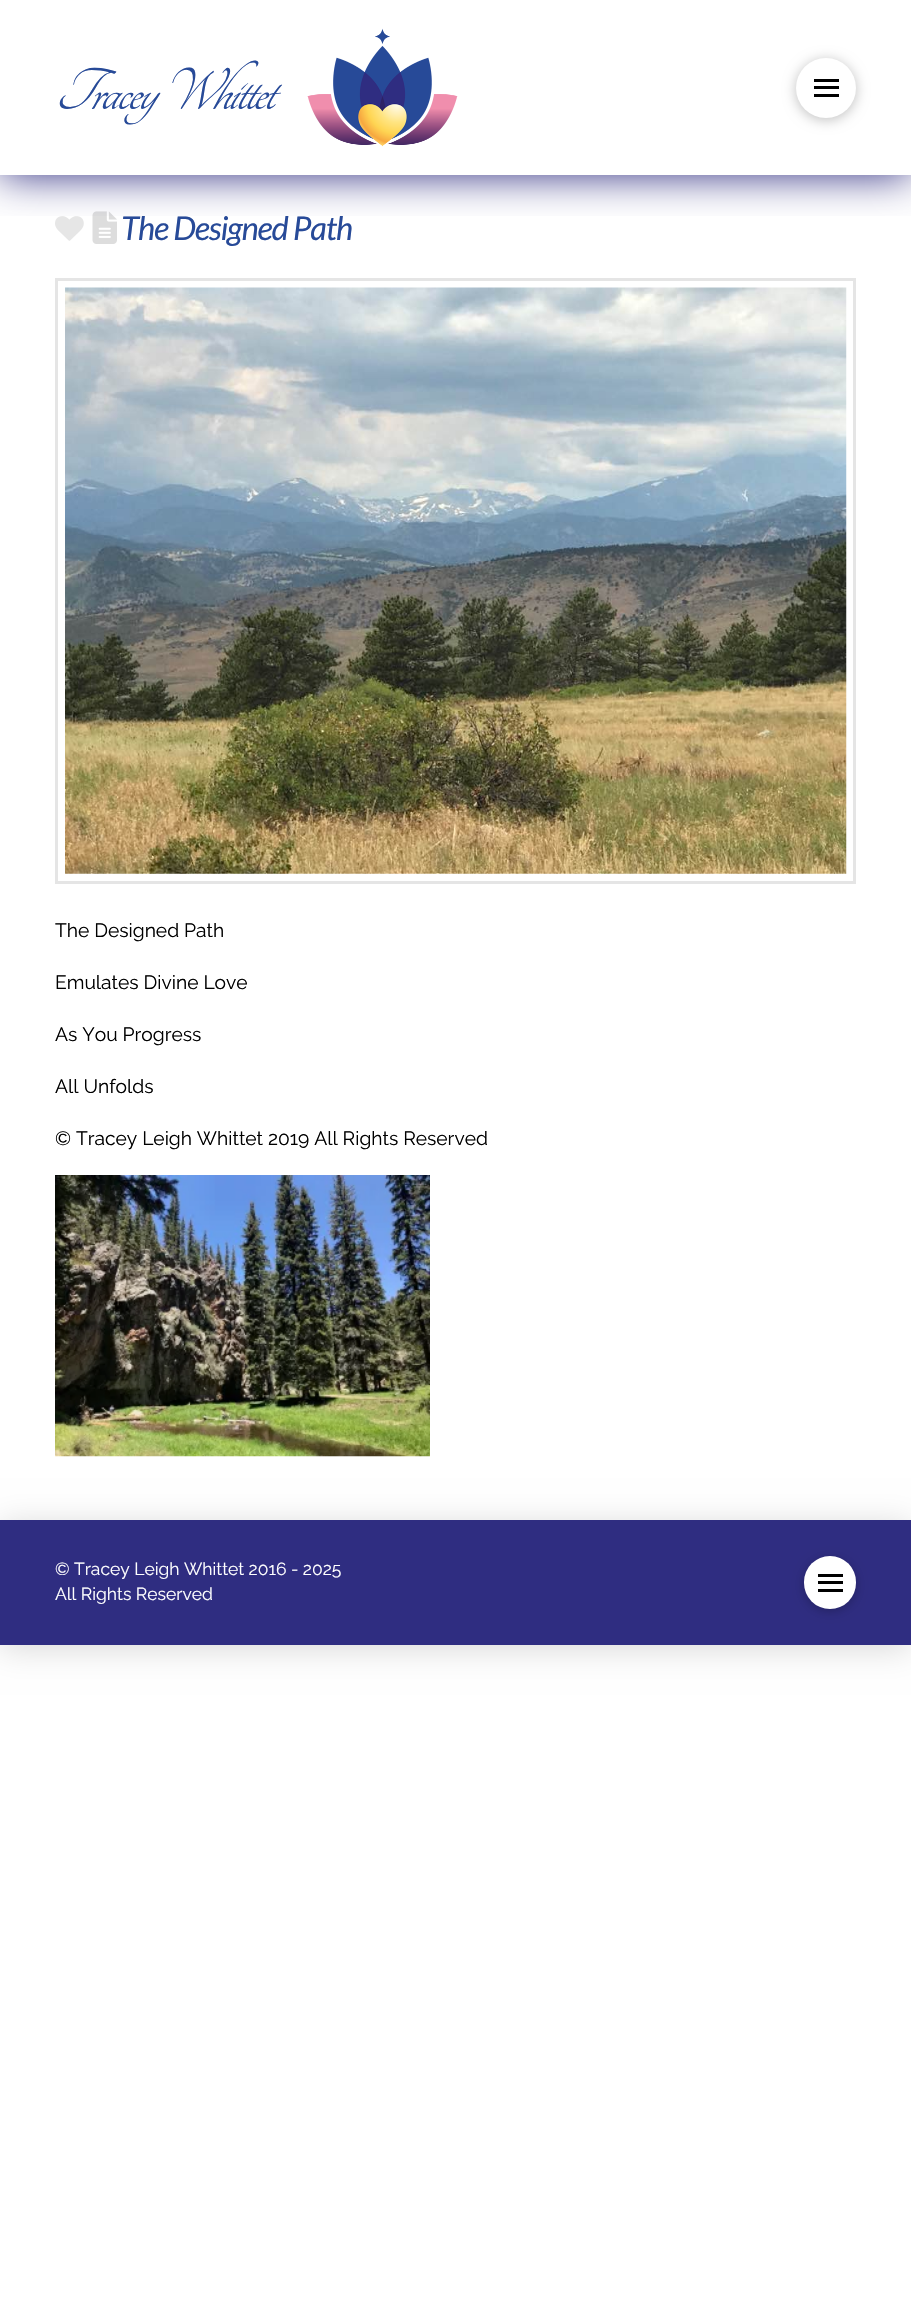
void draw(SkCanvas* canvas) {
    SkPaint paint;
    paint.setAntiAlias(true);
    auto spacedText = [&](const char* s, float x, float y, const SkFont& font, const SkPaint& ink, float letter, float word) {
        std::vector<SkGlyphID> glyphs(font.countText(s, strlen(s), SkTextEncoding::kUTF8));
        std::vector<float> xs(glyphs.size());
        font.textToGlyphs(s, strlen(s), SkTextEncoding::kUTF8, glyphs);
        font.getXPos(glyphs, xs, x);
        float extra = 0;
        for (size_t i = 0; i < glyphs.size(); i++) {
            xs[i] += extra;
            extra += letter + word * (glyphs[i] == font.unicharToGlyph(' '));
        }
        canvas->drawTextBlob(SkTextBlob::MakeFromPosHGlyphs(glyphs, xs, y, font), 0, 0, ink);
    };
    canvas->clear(0xFFFFFFFF);
    canvas->drawImageRect(SkImages::DeferredFromEncodedData(SkData::MakeFromFileName("img2.png")), SkRect::MakeXYWH(55, 216, 29, 25), SkSamplingOptions());
    canvas->drawImageRect(SkImages::DeferredFromEncodedData(SkData::MakeFromFileName("img3.png")), SkRect::MakeXYWH(92, 211, 25, 33), SkSamplingOptions());
    canvas->save();
    canvas->clipRect(SkRect::MakeXYWH(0, 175, 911, 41));
    paint.setColor(0xFF2F2D81);
    paint.setMaskFilter(SkMaskFilter::MakeBlur(kNormal_SkBlurStyle, 20));
    canvas->drawRect(SkRect::MakeXYWH(0, 0, 911, 175), paint);
    paint.setMaskFilter(nullptr);
    canvas->restore();
    SkFont font1(fontMgr->matchFamilyStyle("Tangerine", SkFontStyle::Italic()), 64);
    font1.setSubpixel(true);
    paint.setColor(0xFF274A98);
    spacedText("Tracey Whittet", 55, 109, font1, paint, -2.25f, 0);
    canvas->drawImageRect(SkImages::DeferredFromEncodedData(SkData::MakeFromFileName("img1.png")), SkRect::MakeXYWH(307, 28, 151, 119), SkSamplingOptions());
    paint.setColor(0x40000000);
    paint.setMaskFilter(SkMaskFilter::MakeBlur(kNormal_SkBlurStyle, 6.5f));
    canvas->drawRoundRect(SkRect::MakeXYWH(796, 60, 60, 60), 30, 30, paint);
    paint.setMaskFilter(nullptr);
    paint.setColor(0xFFFFFFFF);
    canvas->drawCircle(826, 88, 30, paint);
    paint.setColor(0xFF000000);
    canvas->drawRect(SkRect::MakeXYWH(814, 79, 25, 3), paint);
    canvas->drawRect(SkRect::MakeXYWH(814, 86, 25, 3), paint);
    canvas->drawRect(SkRect::MakeXYWH(814, 94, 25, 3), paint);
    SkFont font2(fontMgr->matchFamilyStyle("Lato", SkFontStyle::Italic()), 32.75f);
    font2.setSubpixel(true);
    paint.setColor(0xFF274A98);
    spacedText("The Designed Path", 121, 240, font2, paint, -1.1f, 0);
    paint.setStyle(SkPaint::kStroke_Style);
    paint.setStrokeWidth(3);
    paint.setColor(0xFFE5E5E5);
    canvas->drawRect(SkRect::MakeXYWH(56.5f, 279.5f, 798, 603), paint);
    canvas->drawImageRect(SkImages::DeferredFromEncodedData(SkData::MakeFromFileName("img4.png")), SkRect::MakeXYWH(65, 287, 782, 587), SkSamplingOptions());
    SkFont font3(fontMgr->matchFamilyStyle("Raleway", SkFontStyle::Normal()), 19.25f);
    font3.setSubpixel(true);
    paint.setStyle(SkPaint::kFill_Style);
    paint.setColor(0xFF000000);
    canvas->drawString("The Designed Path", 55, 937, font3, paint);
    canvas->drawString("Emulates Divine Love", 55, 989, font3, paint);
    canvas->drawString("As You Progress", 55, 1041, font3, paint);
    canvas->drawString("All Unfolds", 55, 1093, font3, paint);
    canvas->drawString("© Tracey Leigh Whittet 2019 All Rights Reserved", 55, 1145, font3, paint);
    canvas->drawImageRect(SkImages::DeferredFromEncodedData(SkData::MakeFromFileName("img5.png")), SkRect::MakeXYWH(55, 1175, 375, 282), SkSamplingOptions());
    paint.setColor(0x26000000);
    paint.setMaskFilter(SkMaskFilter::MakeBlur(kNormal_SkBlurStyle, 15.5f));
    canvas->drawRect(SkRect::MakeXYWH(0, 1524, 911, 125), paint);
    paint.setMaskFilter(nullptr);
    paint.setColor(0xFF2F2D81);
    canvas->drawRect(SkRect::MakeXYWH(0, 1520, 911, 125), paint);
    SkFont font4(fontMgr->matchFamilyStyle("Raleway", SkFontStyle::Normal()), 17.5f);
    font4.setSubpixel(true);
    paint.setColor(0xFFFFFFFF);
    canvas->drawString("© Tracey Leigh Whittet 2016 - 2025", 55, 1575, font4, paint);
    canvas->drawString("All Rights Reserved", 55, 1600, font4, paint);
    paint.setColor(0x40000000);
    paint.setMaskFilter(SkMaskFilter::MakeBlur(kNormal_SkBlurStyle, 5.5f));
    canvas->drawRoundRect(SkRect::MakeXYWH(804, 1559, 52, 52), 26, 26, paint);
    paint.setMaskFilter(nullptr);
    paint.setColor(0xFFFFFFFF);
    canvas->drawRoundRect(SkRect::MakeXYWH(804, 1556, 52, 53), 26, 26, paint);
    paint.setColor(0xFF000000);
    canvas->drawRect(SkRect::MakeXYWH(818, 1574, 25, 3), paint);
    canvas->drawRect(SkRect::MakeXYWH(818, 1581, 25, 3), paint);
    canvas->drawRect(SkRect::MakeXYWH(818, 1589, 25, 3), paint);
}
